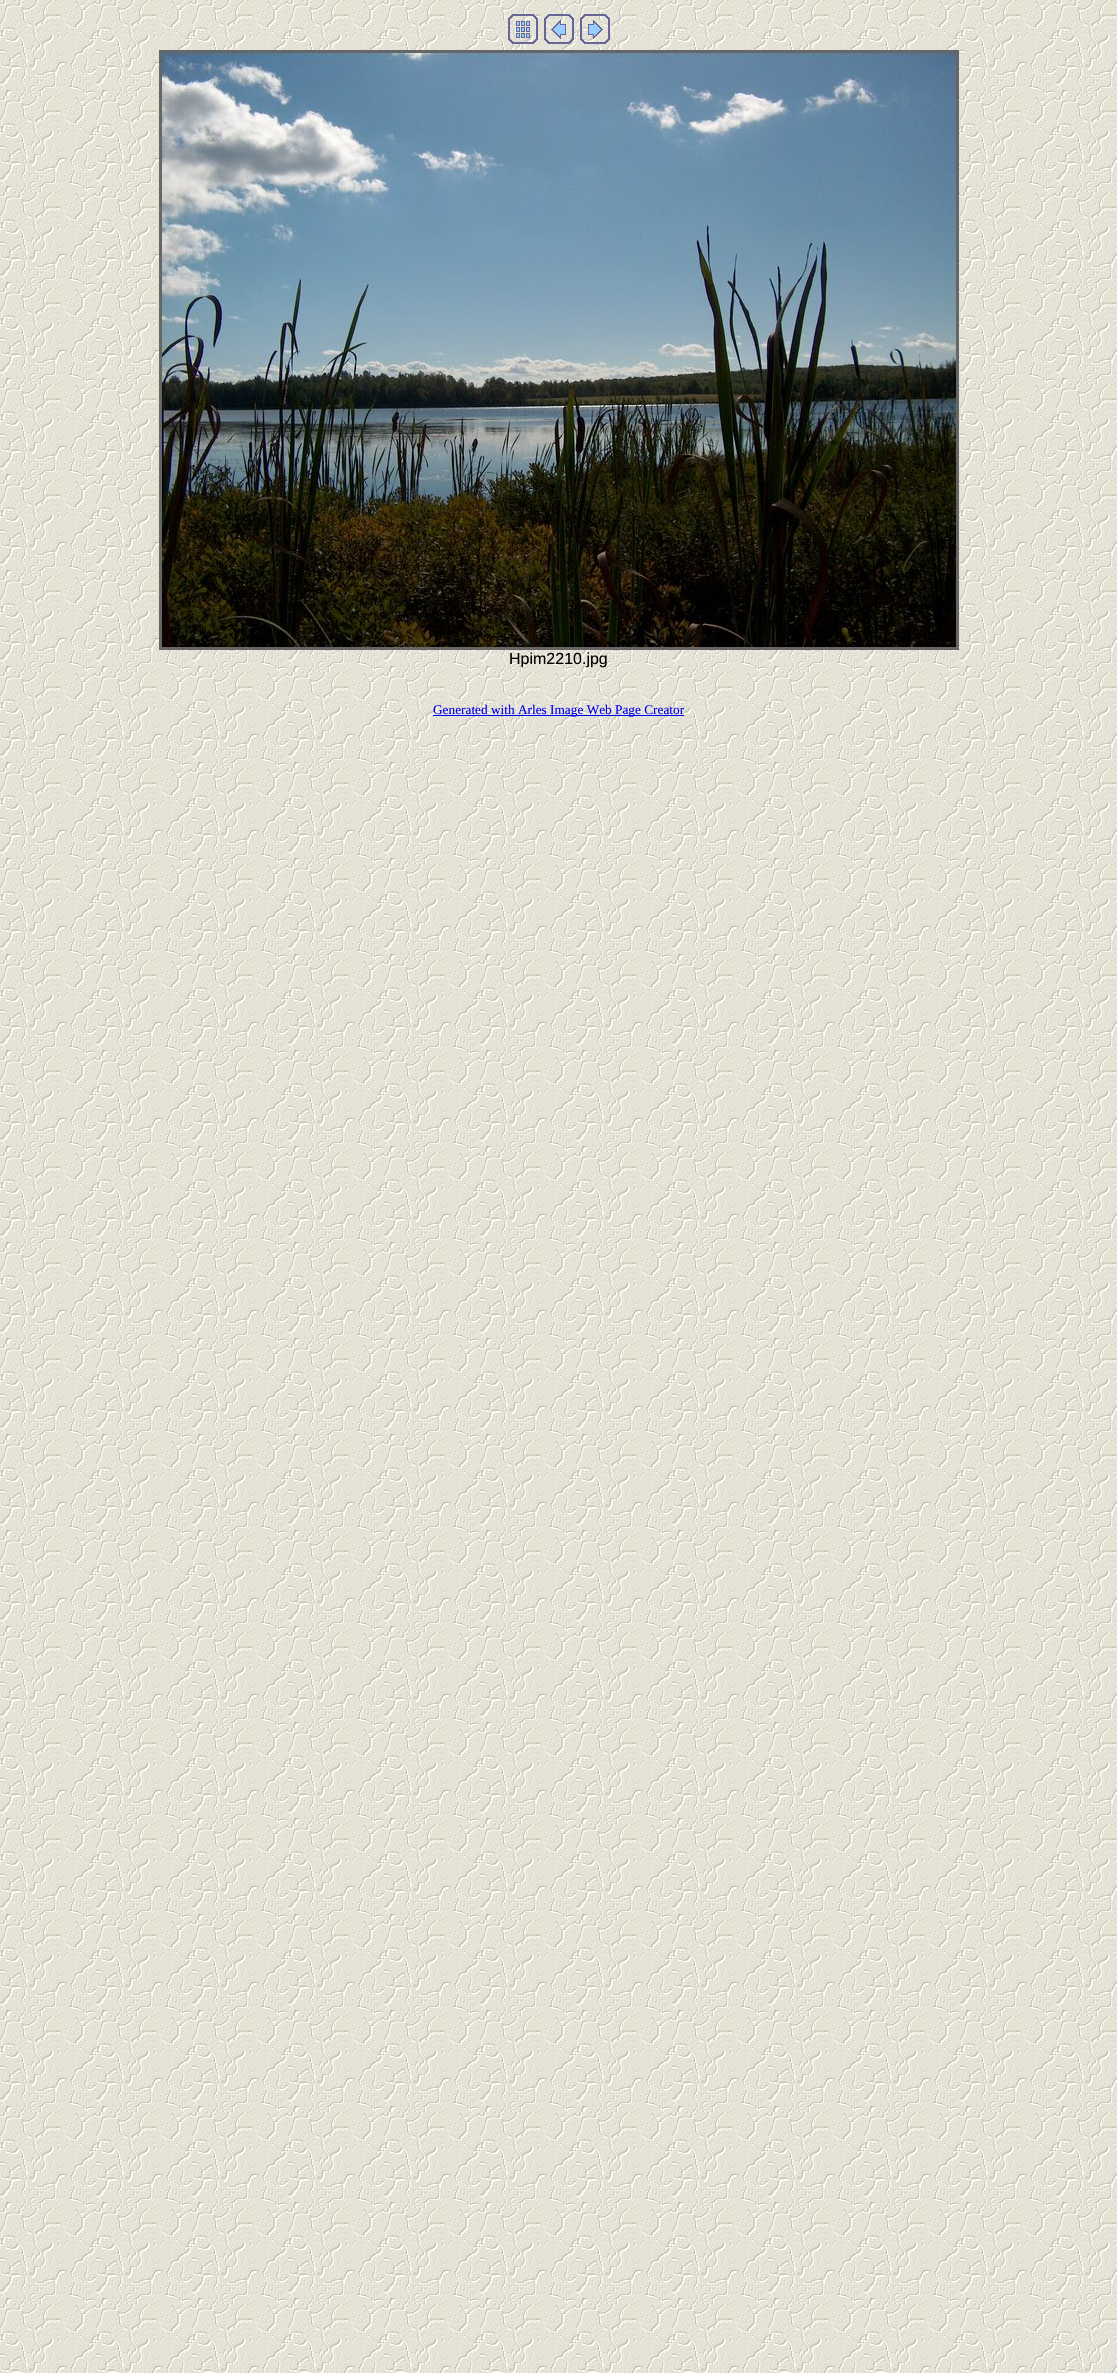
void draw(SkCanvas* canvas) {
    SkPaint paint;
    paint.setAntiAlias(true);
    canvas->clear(0xFFFFFFFF);
    canvas->drawImageRect(SkImages::DeferredFromEncodedData(SkData::MakeFromFileName("img1.png")), SkRect::MakeXYWH(0, 0, 1117, 2373), SkSamplingOptions());
    canvas->drawImageRect(SkImages::DeferredFromEncodedData(SkData::MakeFromFileName("img2.png")), SkRect::MakeXYWH(508, 14, 30, 30), SkSamplingOptions());
    canvas->drawImageRect(SkImages::DeferredFromEncodedData(SkData::MakeFromFileName("img3.png")), SkRect::MakeXYWH(544, 14, 30, 30), SkSamplingOptions());
    canvas->drawImageRect(SkImages::DeferredFromEncodedData(SkData::MakeFromFileName("img4.png")), SkRect::MakeXYWH(580, 14, 30, 30), SkSamplingOptions());
    canvas->drawImageRect(SkImages::DeferredFromEncodedData(SkData::MakeFromFileName("img5.png")), SkRect::MakeXYWH(159, 50, 800, 600), SkSamplingOptions());
    SkFont font1(fontMgr->matchFamilyStyle("Liberation Sans", SkFontStyle::Normal()), 16);
    font1.setSubpixel(true);
    paint.setColor(0xFF000000);
    canvas->drawString("Hpim2210.jpg", 509, 664, font1, paint);
    paint.setColor(0xFF0000EE);
    canvas->drawRect(SkRect::MakeXYWH(433, 715, 251, 1), paint);
    SkFont font2(fontMgr->matchFamilyStyle("Liberation Serif", SkFontStyle::Normal()), 13.3f);
    font2.setSubpixel(true);
    canvas->drawString("Generated with Arles Image Web Page Creator", 433, 714, font2, paint);
}
